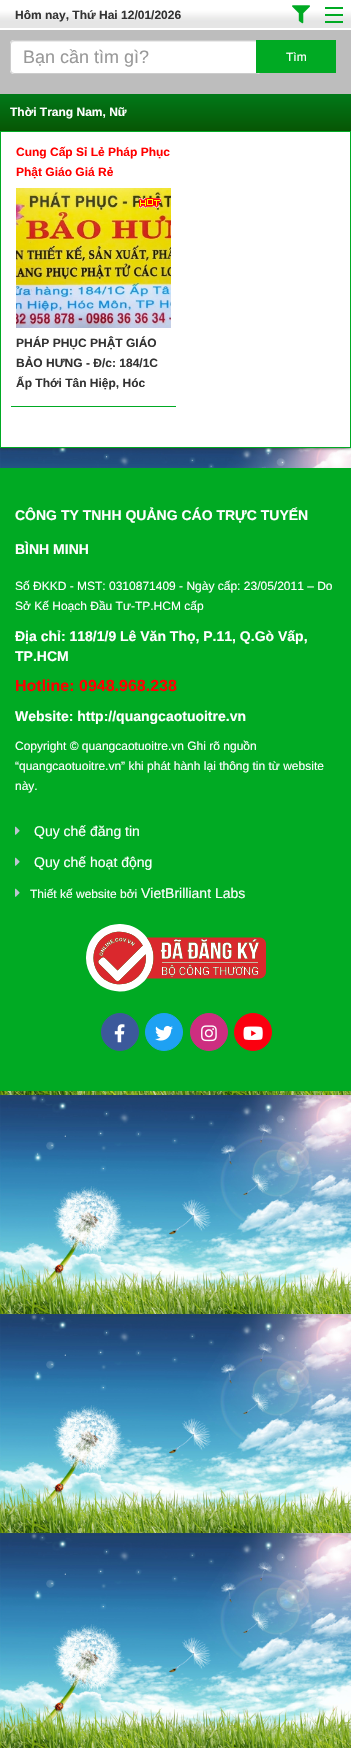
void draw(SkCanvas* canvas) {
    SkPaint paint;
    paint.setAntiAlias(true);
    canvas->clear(0xFFFFFFFF);
    canvas->drawImageRect(SkImages::DeferredFromEncodedData(SkData::MakeFromFileName("img1.png")), SkRect::MakeXYWH(0, 448, 351, 1300), SkSamplingOptions());
    canvas->drawImageRect(SkImages::DeferredFromEncodedData(SkData::MakeFromFileName("img2.png")), SkRect::MakeXYWH(0, 0, 351, 30), SkSamplingOptions());
    SkFont font1(fontMgr->matchFamilyStyle("Liberation Sans", SkFontStyle::Bold()), 12);
    font1.setSubpixel(true);
    paint.setColor(0xFF333333);
    canvas->drawString("Hôm nay, Thứ Hai 12/01/2026", 15, 19, font1, paint);
    canvas->drawImageRect(SkImages::DeferredFromEncodedData(SkData::MakeFromFileName("img3.png")), SkRect::MakeXYWH(292, 5, 18, 19), SkSamplingOptions());
    paint.setColor(0xFF00AA23);
    canvas->drawRect(SkRect::MakeXYWH(325, 21, 18, 2), paint);
    canvas->drawRect(SkRect::MakeXYWH(325, 14, 18, 2), paint);
    canvas->drawRect(SkRect::MakeXYWH(325, 7, 18, 2), paint);
    paint.setColor(0xFF333333);
    paint.setMaskFilter(SkMaskFilter::MakeBlur(kNormal_SkBlurStyle, 1.5f));
    canvas->drawRect(SkRect::MakeXYWH(0, 94, 351, 354), paint);
    paint.setMaskFilter(nullptr);
    paint.setColor(0xFFBDBDBD);
    canvas->drawRect(SkRect::MakeXYWH(0, 30, 351, 64), paint);
    paint.setColor(0xFFFFFFFF);
    canvas->drawRoundRect(SkRect::MakeXYWH(10, 40, 251, 34), 4, 4, paint);
    paint.setColor(0xFFEBEBEB);
    canvas->drawPath(SkPathBuilder().moveTo(14, 42).lineTo(258, 42).lineTo(260, 43).lineTo(260, 45).cubicTo(260, 43, 259, 41, 257, 41).lineTo(14, 41).cubicTo(12, 41, 11, 43, 11, 45).cubicTo(11, 43, 12, 42, 14, 42).close().detach(), paint);
    paint.setStyle(SkPaint::kStroke_Style);
    paint.setStrokeWidth(1);
    paint.setColor(0xFFCCCCCC);
    canvas->drawRoundRect(SkRect::MakeXYWH(10.5f, 40.5f, 250, 33), 3.5f, 3.5f, paint);
    SkFont font2(fontMgr->matchFamilyStyle("Liberation Sans", SkFontStyle::Normal()), 18);
    font2.setSubpixel(true);
    paint.setStyle(SkPaint::kFill_Style);
    paint.setColor(0xFF999999);
    canvas->drawString("Bạn cần tìm gì?", 23, 63, font2, paint);
    paint.setColor(0xFF00AA23);
    canvas->drawRect(SkRect::MakeXYWH(256, 40, 80, 33), paint);
    SkFont font3(fontMgr->matchFamilyStyle("Liberation Sans", SkFontStyle::Normal()), 12);
    font3.setSubpixel(true);
    paint.setColor(0xFFFFFFFF);
    canvas->drawString("Tìm", 286, 61, font3, paint);
    {
        const SkColor colors[] = {0xFF017919, 0xFF075604};
        const float stops[] = {0, 1};
        const SkPoint ends[] = {{176, 94}, {176, 131}};
        paint.setShader(SkGradientShader::MakeLinear(ends, colors, stops, 2, SkTileMode::kClamp));
        paint.setAlpha(255);
    }
    canvas->drawRect(SkRect::MakeXYWH(0, 94, 351, 37), paint);
    paint.setShader(nullptr);
    paint.setColor(0xFFFFFFFF);
    canvas->drawString("Thời Trang Nam, Nữ", 10, 116, font1, paint);
    canvas->drawRect(SkRect::MakeXYWH(0.5f, 131.5f, 350, 316), paint);
    paint.setStyle(SkPaint::kStroke_Style);
    paint.setColor(0xFF00AA23);
    canvas->drawRect(SkRect::MakeXYWH(0.5f, 131.5f, 350, 316), paint);
    paint.setStyle(SkPaint::kFill_Style);
    canvas->drawRect(SkRect::MakeXYWH(11, 406, 165, 1), paint);
    paint.setColor(0xFFFF0000);
    canvas->drawString("Cung Cấp Sỉ Lẻ Pháp Phục", 16, 156, font1, paint);
    canvas->drawString("Phật Giáo Giá Rẻ", 16, 176, font1, paint);
    canvas->drawImageRect(SkImages::DeferredFromEncodedData(SkData::MakeFromFileName("img4.png")), SkRect::MakeXYWH(16, 188, 155, 140), SkSamplingOptions());
    canvas->drawImageRect(SkImages::DeferredFromEncodedData(SkData::MakeFromFileName("img5.png")), SkRect::MakeXYWH(139, 198, 22, 10), SkSamplingOptions());
    paint.setColor(0xFF333333);
    canvas->drawString("PHÁP PHỤC PHẬT GIÁO", 16, 347, font1, paint);
    canvas->drawString("BẢO HƯNG - Đ/c: 184/1C", 16, 367, font1, paint);
    canvas->drawString("Ấp Thới Tân Hiệp, Hóc", 16, 387, font1, paint);
    paint.setColor(0xFF00AA23);
    canvas->drawRect(SkRect::MakeXYWH(0, 468, 351, 623), paint);
    SkFont font4(fontMgr->matchFamilyStyle("Liberation Sans", SkFontStyle::Bold()), 14);
    font4.setSubpixel(true);
    paint.setColor(0xFFFFFFFF);
    canvas->drawString("CÔNG TY TNHH QUẢNG CÁO TRỰC TUYẾN", 15, 520, font4, paint);
    canvas->drawString("BÌNH MINH", 15, 554, font4, paint);
    canvas->drawString("Số ĐKKD - MST: 0310871409 - Ngày cấp: 23/05/2011 – Do", 15, 590, font3, paint);
    canvas->drawString("Sở Kế Hoạch Đầu Tư-TP.HCM cấp", 15, 610, font3, paint);
    canvas->drawString("Địa chỉ: 118/1/9 Lê Văn Thọ, P.11, Q.Gò Vấp,", 15, 641, font4, paint);
    canvas->drawString("TP.HCM", 15, 661, font4, paint);
    SkFont font5(fontMgr->matchFamilyStyle("Liberation Sans", SkFontStyle::Bold()), 16);
    font5.setSubpixel(true);
    paint.setColor(0xFFFF0000);
    canvas->drawString("Hotline: 0948.968.238", 15, 691, font5, paint);
    paint.setColor(0xFFFFFFFF);
    canvas->drawString("Website: http://quangcaotuoitre.vn", 15, 721, font4, paint);
    canvas->drawString("Copyright © quangcaotuoitre.vn Ghi rõ nguồn", 15, 750, font3, paint);
    canvas->drawString("“quangcaotuoitre.vn” khi phát hành lại thông tin từ website", 15, 770, font3, paint);
    canvas->drawString("này.", 15, 790, font3, paint);
    canvas->drawImageRect(SkImages::DeferredFromEncodedData(SkData::MakeFromFileName("img6.png")), SkRect::MakeXYWH(15, 826, 5, 9), SkSamplingOptions());
    SkFont font6(fontMgr->matchFamilyStyle("Liberation Sans", SkFontStyle::Normal()), 14);
    font6.setSubpixel(true);
    canvas->drawString("Quy chế đăng tin", 34, 836, font6, paint);
    canvas->drawImageRect(SkImages::DeferredFromEncodedData(SkData::MakeFromFileName("img6.png")), SkRect::MakeXYWH(15, 857, 5, 9), SkSamplingOptions());
    canvas->drawString("Quy chế hoạt động", 34, 867, font6, paint);
    canvas->drawImageRect(SkImages::DeferredFromEncodedData(SkData::MakeFromFileName("img6.png")), SkRect::MakeXYWH(15, 888, 5, 9), SkSamplingOptions());
    canvas->drawString("Thiết kế website bởi", 30, 898, font3, paint);
    canvas->drawString("VietBrilliant Labs", 141, 898, font6, paint);
    canvas->drawImageRect(SkImages::DeferredFromEncodedData(SkData::MakeFromFileName("img7.png")), SkRect::MakeXYWH(86, 924, 180, 68), SkSamplingOptions());
    paint.setColor(0xFF3C599B);
    canvas->drawCircle(120, 1032, 18.5f, paint);
    paint.setStyle(SkPaint::kStroke_Style);
    canvas->drawCircle(120, 1032, 18.5f, paint);
    canvas->drawImageRect(SkImages::DeferredFromEncodedData(SkData::MakeFromFileName("img8.png")), SkRect::MakeXYWH(114, 1024, 11, 19), SkSamplingOptions());
    paint.setStyle(SkPaint::kFill_Style);
    paint.setColor(0xFF1EA1F3);
    canvas->drawCircle(164, 1032, 18.5f, paint);
    paint.setStyle(SkPaint::kStroke_Style);
    canvas->drawCircle(164, 1032, 18.5f, paint);
    canvas->drawImageRect(SkImages::DeferredFromEncodedData(SkData::MakeFromFileName("img9.png")), SkRect::MakeXYWH(155, 1025, 18, 16), SkSamplingOptions());
    paint.setStyle(SkPaint::kFill_Style);
    paint.setColor(0xFFCD2E80);
    canvas->drawCircle(209, 1032, 18.5f, paint);
    paint.setStyle(SkPaint::kStroke_Style);
    canvas->drawCircle(209, 1032, 18.5f, paint);
    canvas->drawImageRect(SkImages::DeferredFromEncodedData(SkData::MakeFromFileName("img10.png")), SkRect::MakeXYWH(201, 1025, 16, 17), SkSamplingOptions());
    paint.setStyle(SkPaint::kFill_Style);
    paint.setColor(0xFFFB000F);
    canvas->drawCircle(253, 1032, 18.5f, paint);
    paint.setStyle(SkPaint::kStroke_Style);
    canvas->drawCircle(253, 1032, 18.5f, paint);
    canvas->drawImageRect(SkImages::DeferredFromEncodedData(SkData::MakeFromFileName("img11.png")), SkRect::MakeXYWH(243, 1026, 20, 14), SkSamplingOptions());
}
